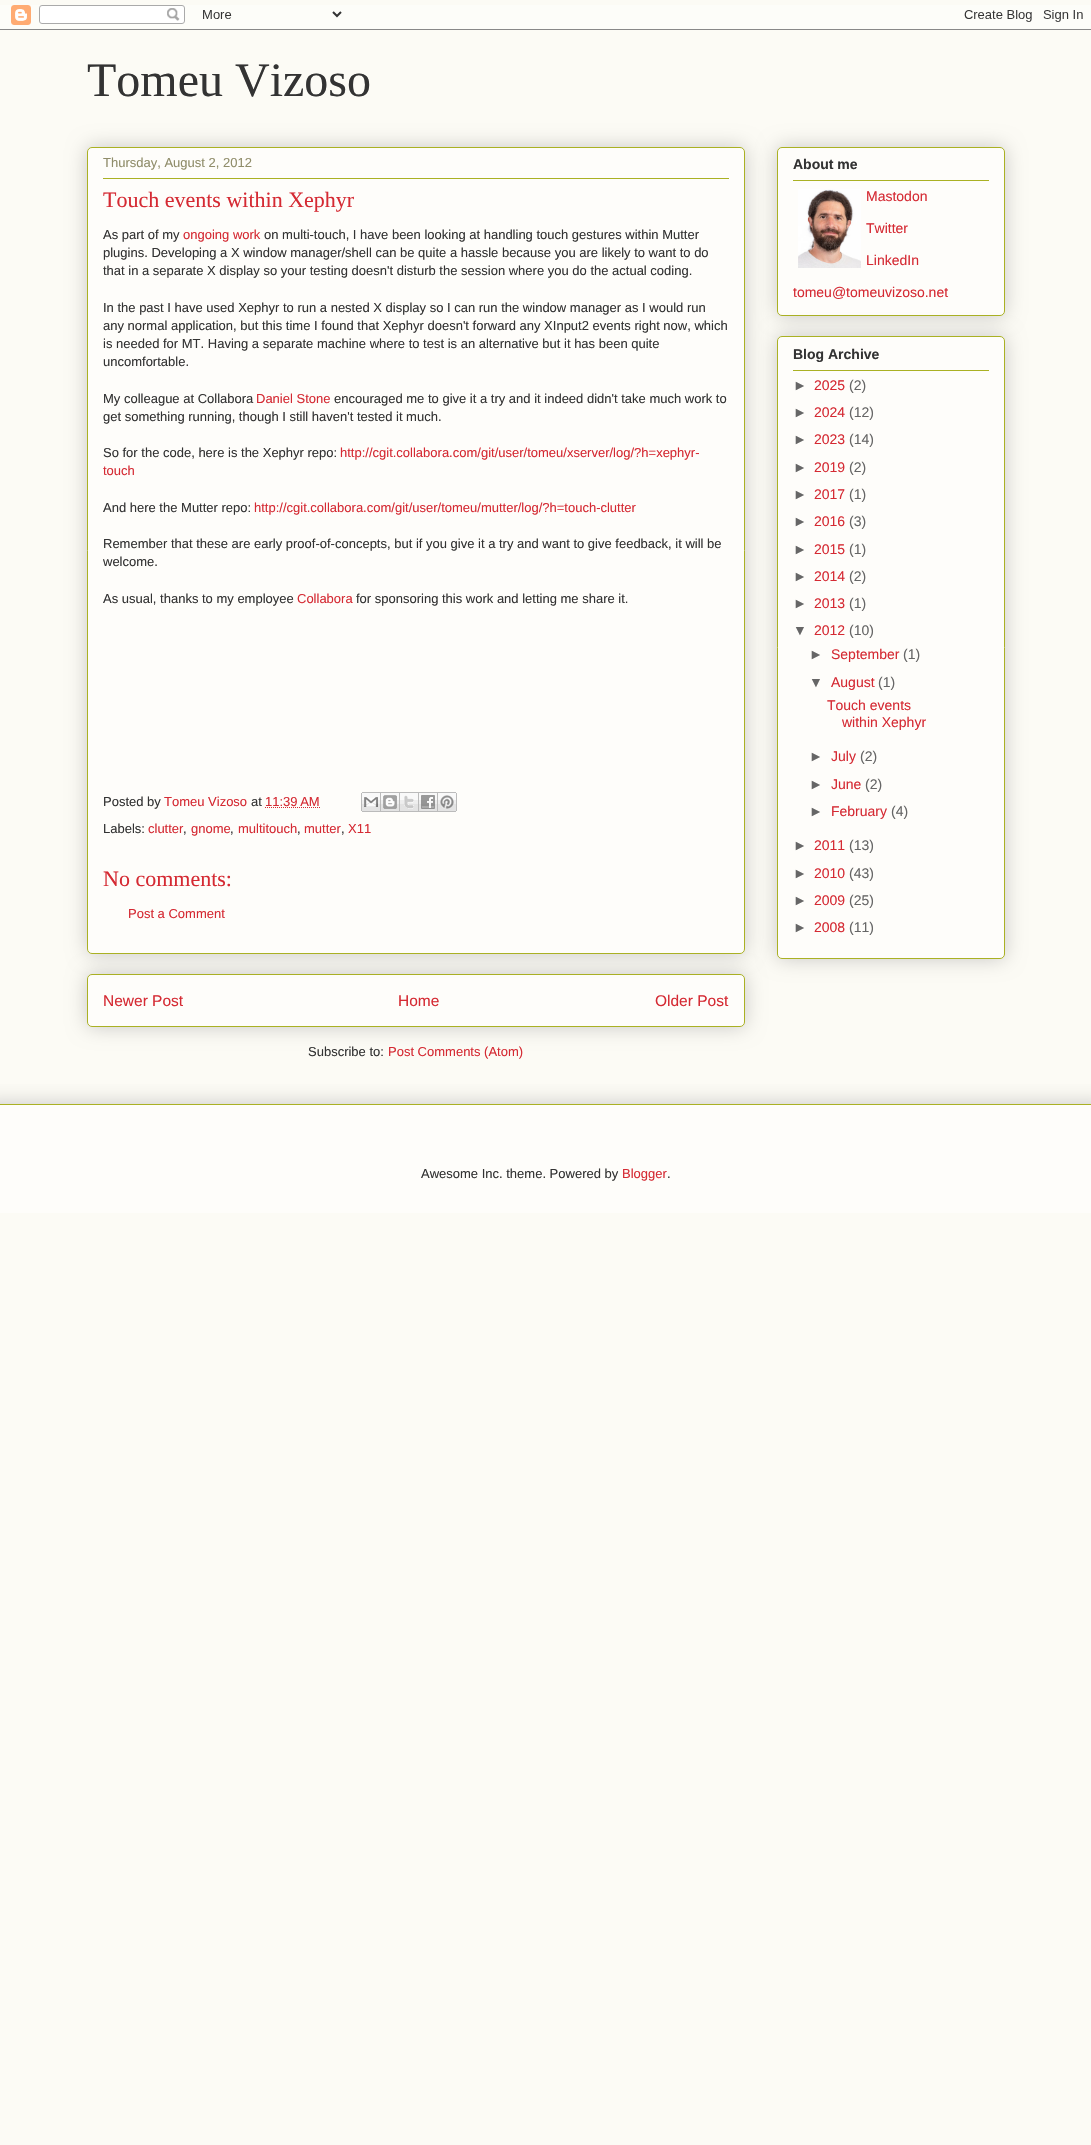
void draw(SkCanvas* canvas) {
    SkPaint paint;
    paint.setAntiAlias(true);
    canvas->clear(0xFFFCFBF5);
    canvas->drawImageRect(SkImages::DeferredFromEncodedData(SkData::MakeFromFileName("img1.png")), SkRect::MakeXYWH(0, 5, 1091, 25), SkSamplingOptions());
    SkFont font1(fontMgr->matchFamilyStyle("Liberation Serif", SkFontStyle::Normal()), 48);
    font1.setSubpixel(true);
    paint.setColor(0xFF333333);
    canvas->drawString("Tomeu Vizoso", 87, 96, font1, paint);
    paint.setColor(0x33000000);
    paint.setMaskFilter(SkMaskFilter::MakeBlur(kNormal_SkBlurStyle, 10));
    canvas->drawRoundRect(SkRect::MakeXYWH(87, 974, 658, 53), 5, 5, paint);
    paint.setMaskFilter(nullptr);
    paint.setColor(0xFFFEFDFA);
    canvas->drawRoundRect(SkRect::MakeXYWH(87.5f, 974.5f, 657, 52), 4.5f, 4.5f, paint);
    paint.setStyle(SkPaint::kStroke_Style);
    paint.setStrokeWidth(1);
    paint.setColor(0xFFAAB123);
    canvas->drawRoundRect(SkRect::MakeXYWH(87.5f, 974.5f, 657, 52), 4.5f, 4.5f, paint);
    paint.setStyle(SkPaint::kFill_Style);
    paint.setColor(0x33000000);
    paint.setMaskFilter(SkMaskFilter::MakeBlur(kNormal_SkBlurStyle, 10));
    canvas->drawRoundRect(SkRect::MakeXYWH(87, 147, 658, 807), 5, 5, paint);
    paint.setMaskFilter(nullptr);
    paint.setColor(0xFFFEFDFA);
    canvas->drawRoundRect(SkRect::MakeXYWH(87.5f, 147.5f, 657, 806), 4.5f, 4.5f, paint);
    paint.setStyle(SkPaint::kStroke_Style);
    paint.setColor(0xFFAAB123);
    canvas->drawRoundRect(SkRect::MakeXYWH(87.5f, 147.5f, 657, 806), 4.5f, 4.5f, paint);
    SkFont font2(fontMgr->matchFamilyStyle("Liberation Sans", SkFontStyle::Normal()), 13);
    font2.setSubpixel(true);
    paint.setStyle(SkPaint::kFill_Style);
    paint.setColor(0xFF908D6A);
    canvas->drawString("Thursday, August 2, 2012", 103, 167, font2, paint);
    paint.setColor(0xFFAAB123);
    canvas->drawRect(SkRect::MakeXYWH(103, 178, 626, 1), paint);
    SkFont font3(fontMgr->matchFamilyStyle("Liberation Serif", SkFontStyle::Normal()), 22);
    font3.setSubpixel(true);
    paint.setColor(0xFFD52A33);
    canvas->drawString("Touch events within Xephyr", 103, 207, font3, paint);
    paint.setColor(0xFF333333);
    canvas->drawString("As part of my", 103, 239, font2, paint);
    paint.setColor(0xFFD52A33);
    canvas->drawString("ongoing work", 183, 239, font2, paint);
    paint.setColor(0xFF333333);
    canvas->drawString("on multi-touch, I have been looking at handling touch gestures within Mutter", 264, 239, font2, paint);
    canvas->drawString("plugins. Developing a X window manager/shell can be quite a hassle because you are likely to want to do", 103, 257, font2, paint);
    canvas->drawString("that in a separate X display so your testing doesn't disturb the session where you do the actual coding.", 103, 275, font2, paint);
    canvas->drawString("In the past I have used Xephyr to run a nested X display so I can run the window manager as I would run", 103, 312, font2, paint);
    canvas->drawString("any normal application, but this time I found that Xephyr doesn't forward any XInput2 events right now, which", 103, 330, font2, paint);
    canvas->drawString("is needed for MT. Having a separate machine where to test is an alternative but it has been quite", 103, 348, font2, paint);
    canvas->drawString("uncomfortable.", 103, 366, font2, paint);
    canvas->drawString("My colleague at Collabora", 103, 403, font2, paint);
    paint.setColor(0xFFD52A33);
    canvas->drawString("Daniel Stone", 256, 403, font2, paint);
    paint.setColor(0xFF333333);
    canvas->drawString("encouraged me to give it a try and it indeed didn't take much work to", 334, 403, font2, paint);
    canvas->drawString("get something running, though I still haven't tested it much.", 103, 421, font2, paint);
    canvas->drawString("So for the code, here is the Xephyr repo:", 103, 457, font2, paint);
    paint.setColor(0xFFD52A33);
    canvas->drawString("http://cgit.collabora.com/git/user/tomeu/xserver/log/?h=xephyr-", 340, 457, font2, paint);
    canvas->drawString("touch", 103, 475, font2, paint);
    paint.setColor(0xFF333333);
    canvas->drawString("And here the Mutter repo:", 103, 512, font2, paint);
    paint.setColor(0xFFD52A33);
    canvas->drawString("http://cgit.collabora.com/git/user/tomeu/mutter/log/?h=touch-clutter", 254, 512, font2, paint);
    paint.setColor(0xFF333333);
    canvas->drawString("Remember that these are early proof-of-concepts, but if you give it a try and want to give feedback, it will be", 103, 548, font2, paint);
    canvas->drawString("welcome.", 103, 566, font2, paint);
    canvas->drawString("As usual, thanks to my employee", 103, 603, font2, paint);
    paint.setColor(0xFFD52A33);
    canvas->drawString("Collabora", 297, 603, font2, paint);
    paint.setColor(0xFF333333);
    canvas->drawString("for sponsoring this work and letting me share it.", 356, 603, font2, paint);
    canvas->drawString("Posted by", 103, 806, font2, paint);
    paint.setColor(0xFFD52A33);
    canvas->drawString("Tomeu Vizoso", 164, 806, font2, paint);
    paint.setColor(0xFF333333);
    canvas->drawString("at", 251, 806, font2, paint);
    paint.setColor(0xFFD52A33);
    canvas->drawString("11:39 AM", 265, 806, font2, paint);
    paint.setStyle(SkPaint::kStroke_Style);
    paint.setPathEffect(SkDashPathEffect::Make({{1, 1}}, 0));
    canvas->drawPath(SkPathBuilder().moveTo(265, 807.5f).lineTo(320, 807.5f).detach(), paint);
    paint.setPathEffect(nullptr);
    canvas->drawImageRect(SkImages::DeferredFromEncodedData(SkData::MakeFromFileName("img2.png")), SkRect::MakeXYWH(361, 792, 20, 20), SkSamplingOptions());
    canvas->drawImageRect(SkImages::DeferredFromEncodedData(SkData::MakeFromFileName("img3.png")), SkRect::MakeXYWH(381, 792, 19, 20), SkSamplingOptions());
    canvas->drawImageRect(SkImages::DeferredFromEncodedData(SkData::MakeFromFileName("img4.png")), SkRect::MakeXYWH(400, 792, 19, 20), SkSamplingOptions());
    canvas->drawImageRect(SkImages::DeferredFromEncodedData(SkData::MakeFromFileName("img5.png")), SkRect::MakeXYWH(419, 792, 19, 20), SkSamplingOptions());
    canvas->drawImageRect(SkImages::DeferredFromEncodedData(SkData::MakeFromFileName("img6.png")), SkRect::MakeXYWH(438, 792, 19, 20), SkSamplingOptions());
    paint.setStyle(SkPaint::kFill_Style);
    paint.setColor(0xFF333333);
    canvas->drawString("Labels:", 103, 833, font2, paint);
    paint.setColor(0xFFD52A33);
    canvas->drawString("clutter", 148, 833, font2, paint);
    paint.setColor(0xFF333333);
    canvas->drawString(",", 183, 833, font2, paint);
    paint.setColor(0xFFD52A33);
    canvas->drawString("gnome", 191, 833, font2, paint);
    paint.setColor(0xFF333333);
    canvas->drawString(",", 230, 833, font2, paint);
    paint.setColor(0xFFD52A33);
    canvas->drawString("multitouch", 238, 833, font2, paint);
    paint.setColor(0xFF333333);
    canvas->drawString(",", 297, 833, font2, paint);
    paint.setColor(0xFFD52A33);
    canvas->drawString("mutter", 304, 833, font2, paint);
    paint.setColor(0xFF333333);
    canvas->drawString(",", 341, 833, font2, paint);
    paint.setColor(0xFFD52A33);
    canvas->drawString("X11", 348, 833, font2, paint);
    canvas->drawString("No comments:", 103, 886, font3, paint);
    canvas->drawString("Post a Comment", 128, 918, font2, paint);
    SkFont font4(fontMgr->matchFamilyStyle("Liberation Sans", SkFontStyle::Normal()), 15.5f);
    font4.setSubpixel(true);
    canvas->drawString("Newer Post", 103, 1006, font4, paint);
    canvas->drawString("Home", 398, 1006, font4, paint);
    canvas->drawString("Older Post", 655, 1006, font4, paint);
    paint.setColor(0xFF333333);
    canvas->drawString("Subscribe to:", 308, 1056, font2, paint);
    paint.setColor(0xFFD52A33);
    canvas->drawString("Post Comments (Atom)", 388, 1056, font2, paint);
    paint.setColor(0x33000000);
    paint.setMaskFilter(SkMaskFilter::MakeBlur(kNormal_SkBlurStyle, 10));
    canvas->drawRoundRect(SkRect::MakeXYWH(777, 147, 228, 169), 5, 5, paint);
    paint.setMaskFilter(nullptr);
    paint.setColor(0xFFFEFDFA);
    canvas->drawRoundRect(SkRect::MakeXYWH(777.5f, 147.5f, 227, 168), 4.5f, 4.5f, paint);
    paint.setStyle(SkPaint::kStroke_Style);
    paint.setColor(0xFFAAB123);
    canvas->drawRoundRect(SkRect::MakeXYWH(777.5f, 147.5f, 227, 168), 4.5f, 4.5f, paint);
    SkFont font5(fontMgr->matchFamilyStyle("Liberation Sans", SkFontStyle::Bold()), 14);
    font5.setSubpixel(true);
    paint.setStyle(SkPaint::kFill_Style);
    paint.setColor(0xFF333333);
    canvas->drawString("About me", 793, 169, font5, paint);
    paint.setColor(0xFFAAB123);
    canvas->drawRect(SkRect::MakeXYWH(793, 180, 196, 1), paint);
    canvas->drawImageRect(SkImages::DeferredFromEncodedData(SkData::MakeFromFileName("img7.png")), SkRect::MakeXYWH(798, 189, 63, 79), SkSamplingOptions());
    SkFont font6(fontMgr->matchFamilyStyle("Liberation Sans", SkFontStyle::Normal()), 14);
    font6.setSubpixel(true);
    paint.setColor(0xFFD52A33);
    canvas->drawString("Mastodon", 866, 201, font6, paint);
    canvas->drawString("Twitter", 866, 233, font6, paint);
    canvas->drawString("LinkedIn", 866, 265, font6, paint);
    canvas->drawString("tomeu@tomeuvizoso.net", 793, 297, font6, paint);
    paint.setColor(0x33000000);
    paint.setMaskFilter(SkMaskFilter::MakeBlur(kNormal_SkBlurStyle, 10));
    canvas->drawRoundRect(SkRect::MakeXYWH(777, 336, 228, 623), 5, 5, paint);
    paint.setMaskFilter(nullptr);
    paint.setColor(0xFFFEFDFA);
    canvas->drawRoundRect(SkRect::MakeXYWH(777.5f, 336.5f, 227, 622), 4.5f, 4.5f, paint);
    paint.setStyle(SkPaint::kStroke_Style);
    paint.setColor(0xFFAAB123);
    canvas->drawRoundRect(SkRect::MakeXYWH(777.5f, 336.5f, 227, 622), 4.5f, 4.5f, paint);
    paint.setStyle(SkPaint::kFill_Style);
    paint.setColor(0xFF333333);
    canvas->drawString("Blog Archive", 793, 359, font5, paint);
    paint.setColor(0xFFAAB123);
    canvas->drawRect(SkRect::MakeXYWH(793, 370, 196, 1), paint);
    paint.setColor(0xFF666666);
    canvas->drawString("►", 793, 390, font6, paint);
    paint.setColor(0xFFD52A33);
    canvas->drawString("2025", 814, 390, font6, paint);
    paint.setColor(0xFF666666);
    canvas->drawString("(2)", 849, 390, font6, paint);
    canvas->drawString("►", 793, 417, font6, paint);
    paint.setColor(0xFFD52A33);
    canvas->drawString("2024", 814, 417, font6, paint);
    paint.setColor(0xFF666666);
    canvas->drawString("(12)", 849, 417, font6, paint);
    canvas->drawString("►", 793, 444, font6, paint);
    paint.setColor(0xFFD52A33);
    canvas->drawString("2023", 814, 444, font6, paint);
    paint.setColor(0xFF666666);
    canvas->drawString("(14)", 849, 444, font6, paint);
    canvas->drawString("►", 793, 472, font6, paint);
    paint.setColor(0xFFD52A33);
    canvas->drawString("2019", 814, 472, font6, paint);
    paint.setColor(0xFF666666);
    canvas->drawString("(2)", 849, 472, font6, paint);
    canvas->drawString("►", 793, 499, font6, paint);
    paint.setColor(0xFFD52A33);
    canvas->drawString("2017", 814, 499, font6, paint);
    paint.setColor(0xFF666666);
    canvas->drawString("(1)", 849, 499, font6, paint);
    canvas->drawString("►", 793, 526, font6, paint);
    paint.setColor(0xFFD52A33);
    canvas->drawString("2016", 814, 526, font6, paint);
    paint.setColor(0xFF666666);
    canvas->drawString("(3)", 849, 526, font6, paint);
    canvas->drawString("►", 793, 554, font6, paint);
    paint.setColor(0xFFD52A33);
    canvas->drawString("2015", 814, 554, font6, paint);
    paint.setColor(0xFF666666);
    canvas->drawString("(1)", 849, 554, font6, paint);
    canvas->drawString("►", 793, 581, font6, paint);
    paint.setColor(0xFFD52A33);
    canvas->drawString("2014", 814, 581, font6, paint);
    paint.setColor(0xFF666666);
    canvas->drawString("(2)", 849, 581, font6, paint);
    canvas->drawString("►", 793, 608, font6, paint);
    paint.setColor(0xFFD52A33);
    canvas->drawString("2013", 814, 608, font6, paint);
    paint.setColor(0xFF666666);
    canvas->drawString("(1)", 849, 608, font6, paint);
    canvas->drawString("▼", 793, 635, font6, paint);
    paint.setColor(0xFFD52A33);
    canvas->drawString("2012", 814, 635, font6, paint);
    paint.setColor(0xFF666666);
    canvas->drawString("(10)", 849, 635, font6, paint);
    canvas->drawString("►", 809, 659, font6, paint);
    paint.setColor(0xFFD52A33);
    canvas->drawString("September", 831, 659, font6, paint);
    paint.setColor(0xFF666666);
    canvas->drawString("(1)", 903, 659, font6, paint);
    canvas->drawString("▼", 809, 687, font6, paint);
    paint.setColor(0xFFD52A33);
    canvas->drawString("August", 831, 687, font6, paint);
    paint.setColor(0xFF666666);
    canvas->drawString("(1)", 878, 687, font6, paint);
    paint.setColor(0xFFD52A33);
    canvas->drawString("Touch events", 827, 710, font6, paint);
    canvas->drawString("within Xephyr", 842, 727, font6, paint);
    paint.setColor(0xFF666666);
    canvas->drawString("►", 809, 761, font6, paint);
    paint.setColor(0xFFD52A33);
    canvas->drawString("July", 831, 761, font6, paint);
    paint.setColor(0xFF666666);
    canvas->drawString("(2)", 860, 761, font6, paint);
    canvas->drawString("►", 809, 789, font6, paint);
    paint.setColor(0xFFD52A33);
    canvas->drawString("June", 831, 789, font6, paint);
    paint.setColor(0xFF666666);
    canvas->drawString("(2)", 865, 789, font6, paint);
    canvas->drawString("►", 809, 816, font6, paint);
    paint.setColor(0xFFD52A33);
    canvas->drawString("February", 831, 816, font6, paint);
    paint.setColor(0xFF666666);
    canvas->drawString("(4)", 891, 816, font6, paint);
    canvas->drawString("►", 793, 850, font6, paint);
    paint.setColor(0xFFD52A33);
    canvas->drawString("2011", 814, 850, font6, paint);
    paint.setColor(0xFF666666);
    canvas->drawString("(13)", 849, 850, font6, paint);
    canvas->drawString("►", 793, 878, font6, paint);
    paint.setColor(0xFFD52A33);
    canvas->drawString("2010", 814, 878, font6, paint);
    paint.setColor(0xFF666666);
    canvas->drawString("(43)", 849, 878, font6, paint);
    canvas->drawString("►", 793, 905, font6, paint);
    paint.setColor(0xFFD52A33);
    canvas->drawString("2009", 814, 905, font6, paint);
    paint.setColor(0xFF666666);
    canvas->drawString("(25)", 849, 905, font6, paint);
    canvas->drawString("►", 793, 932, font6, paint);
    paint.setColor(0xFFD52A33);
    canvas->drawString("2008", 814, 932, font6, paint);
    paint.setColor(0xFF666666);
    canvas->drawString("(11)", 849, 932, font6, paint);
    canvas->save();
    canvas->clipRect(SkRect::MakeXYWH(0, 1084, 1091, 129));
    paint.setColor(0x33000000);
    paint.setMaskFilter(SkMaskFilter::MakeBlur(kNormal_SkBlurStyle, 10));
    canvas->drawRect(SkRect::MakeXYWH(-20, 1104, 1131, 109), paint);
    paint.setMaskFilter(nullptr);
    canvas->restore();
    paint.setColor(0xFFFEFDFA);
    canvas->drawRect(SkRect::MakeXYWH(0, 1105, 1091, 108), paint);
    paint.setColor(0xFFAAB123);
    canvas->drawRect(SkRect::MakeXYWH(0, 1104, 1091, 1), paint);
    paint.setColor(0xFF333333);
    canvas->drawString("Awesome Inc. theme. Powered by", 421, 1178, font2, paint);
    paint.setColor(0xFFD52A33);
    canvas->drawString("Blogger", 622, 1178, font2, paint);
    paint.setColor(0xFF333333);
    canvas->drawString(".", 667, 1178, font2, paint);
}
